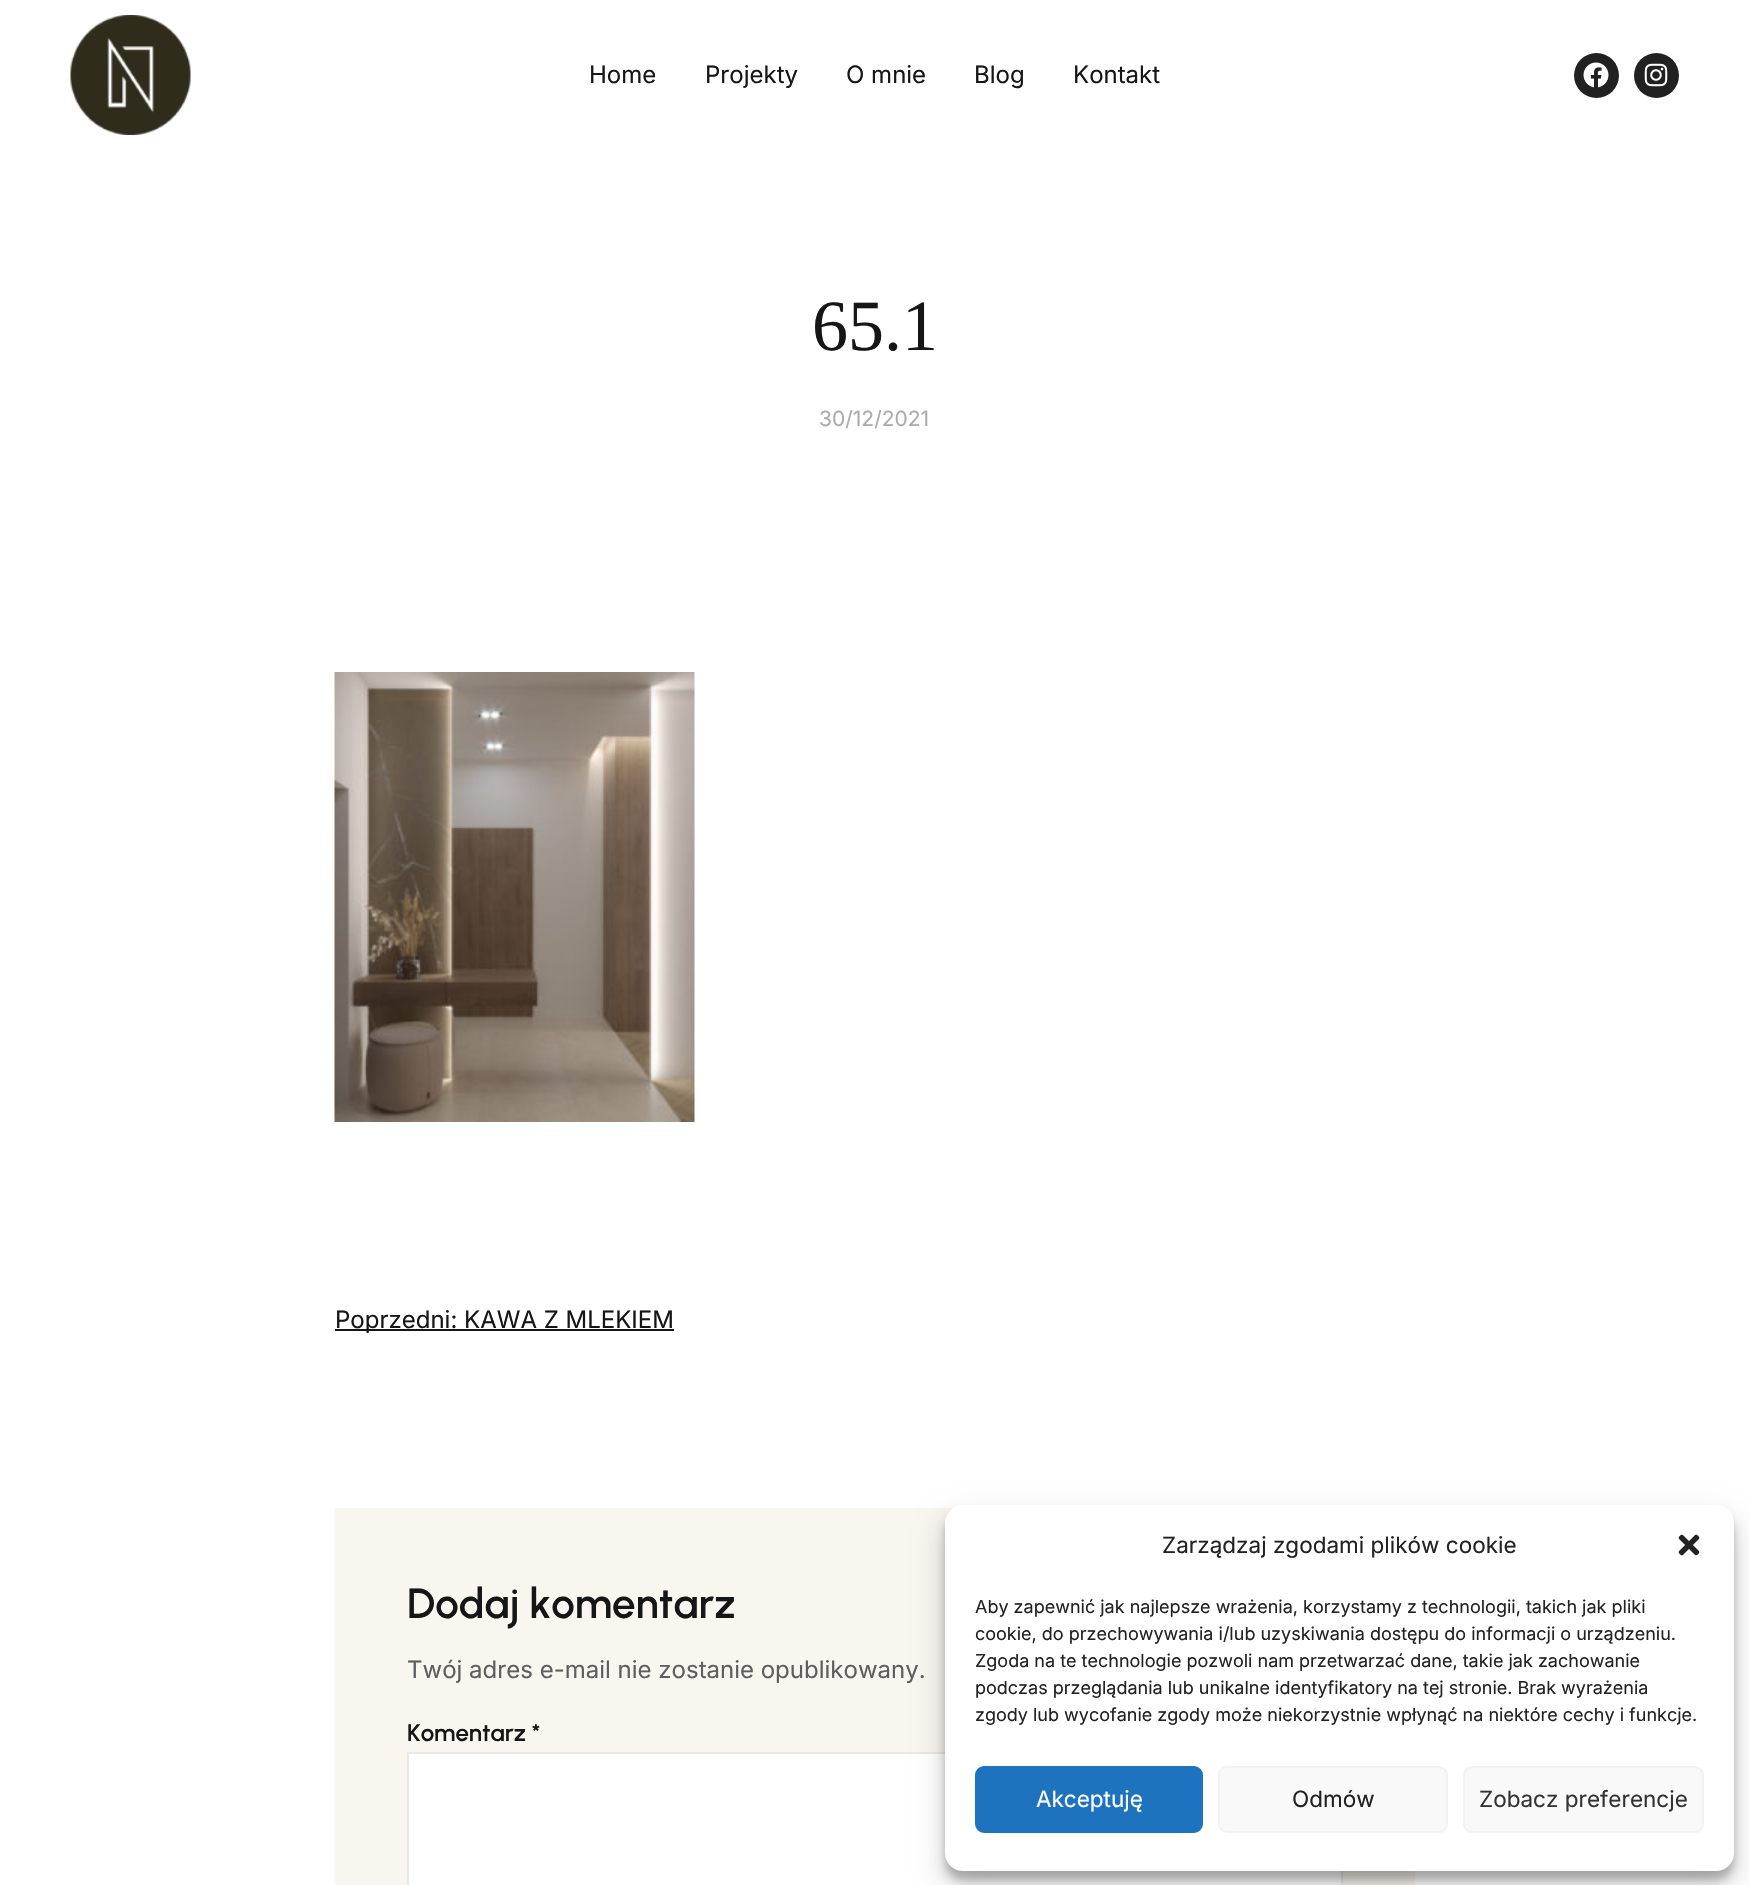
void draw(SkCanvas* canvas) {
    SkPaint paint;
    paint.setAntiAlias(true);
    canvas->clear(0xFFFFFFFF);
    canvas->drawImageRect(SkImages::DeferredFromEncodedData(SkData::MakeFromFileName("img1.png")), SkRect::MakeXYWH(70, 15, 121, 120), SkSamplingOptions());
    SkFont font1(fontMgr->matchFamilyStyle("Inter", SkFontStyle::Normal()), 24);
    font1.setSubpixel(true);
    paint.setColor(0xFF161616);
    canvas->drawString("Home", 589, 83, font1, paint);
    canvas->drawString("Projekty", 705, 83, font1, paint);
    canvas->drawString("O mnie", 846, 83, font1, paint);
    canvas->drawString("Blog", 974, 83, font1, paint);
    canvas->drawString("Kontakt", 1073, 83, font1, paint);
    paint.setColor(0xFF212121);
    canvas->drawCircle(1596.5f, 75.5f, 22.5f, paint);
    canvas->drawImageRect(SkImages::DeferredFromEncodedData(SkData::MakeFromFileName("img2.png")), SkRect::MakeXYWH(1583, 62, 26, 26), SkSamplingOptions());
    canvas->drawCircle(1656.5f, 75.5f, 22.5f, paint);
    canvas->drawImageRect(SkImages::DeferredFromEncodedData(SkData::MakeFromFileName("img3.png")), SkRect::MakeXYWH(1644, 63, 24, 24), SkSamplingOptions());
    SkFont font2(fontMgr->matchFamilyStyle("Liberation Serif", SkFontStyle::Normal()), 72);
    font2.setSubpixel(true);
    paint.setColor(0xFF161616);
    canvas->drawString("65.1", 812, 350, font2, paint);
    SkFont font3(fontMgr->matchFamilyStyle("Inter", SkFontStyle::Normal()), 21);
    font3.setSubpixel(true);
    paint.setColor(0xFFABABAB);
    canvas->drawString("30/12/2021", 819, 426, font3, paint);
    canvas->drawImageRect(SkImages::DeferredFromEncodedData(SkData::MakeFromFileName("img4.png")), SkRect::MakeXYWH(334, 672, 361, 450), SkSamplingOptions());
    paint.setColor(0xFF161616);
    canvas->drawRect(SkRect::MakeXYWH(335, 1329, 339, 2), paint);
    canvas->drawString("Poprzedni: KAWA Z MLEKIEM", 335, 1328, font1, paint);
    paint.setColor(0xFFF9F6EF);
    canvas->drawRect(SkRect::MakeXYWH(335, 1508, 1080, 377), paint);
    SkFont font4(fontMgr->matchFamilyStyle("Urbanist", SkFontStyle(600, SkFontStyle::kNormal_Width, SkFontStyle::kUpright_Slant)), 42);
    font4.setSubpixel(true);
    paint.setColor(0xFF161616);
    canvas->drawString("Dodaj komentarz", 407, 1618, font4, paint);
    paint.setColor(0xFF5E5E5E);
    canvas->drawString("Twój adres e-mail nie zostanie opublikowany.", 407, 1678, font1, paint);
    SkFont font5(fontMgr->matchFamilyStyle("Urbanist", SkFontStyle(600, SkFontStyle::kNormal_Width, SkFontStyle::kUpright_Slant)), 24);
    font5.setSubpixel(true);
    paint.setColor(0xFF161616);
    canvas->drawString("Komentarz *", 407, 1741, font5, paint);
    paint.setColor(0xFFFFFFFF);
    canvas->drawRect(SkRect::MakeXYWH(408, 1753, 934, 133), paint);
    paint.setStyle(SkPaint::kStroke_Style);
    paint.setStrokeWidth(2);
    paint.setColor(0xFFE8E8E8);
    canvas->drawRect(SkRect::MakeXYWH(408, 1753, 934, 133), paint);
    paint.setStyle(SkPaint::kFill_Style);
    paint.setColor(0x3B000000);
    paint.setMaskFilter(SkMaskFilter::MakeBlur(kNormal_SkBlurStyle, 4.5f));
    canvas->drawRoundRect(SkRect::MakeXYWH(945, 1514, 789, 366), 18, 18, paint);
    paint.setMaskFilter(nullptr);
    paint.setColor(0x30000000);
    paint.setMaskFilter(SkMaskFilter::MakeBlur(kNormal_SkBlurStyle, 15));
    canvas->drawRoundRect(SkRect::MakeXYWH(945, 1520, 789, 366), 18, 18, paint);
    paint.setMaskFilter(nullptr);
    paint.setColor(0xFFFFFFFF);
    canvas->drawRoundRect(SkRect::MakeXYWH(945, 1505, 789, 366), 18, 18, paint);
    SkFont font6(fontMgr->matchFamilyStyle("Inter", SkFontStyle::Normal()), 22.5f);
    font6.setSubpixel(true);
    paint.setColor(0xFF222222);
    canvas->drawString("Zarządzaj zgodami plików cookie", 1162, 1553, font6, paint);
    canvas->drawImageRect(SkImages::DeferredFromEncodedData(SkData::MakeFromFileName("img5.png")), SkRect::MakeXYWH(1678, 1534, 22, 22), SkSamplingOptions());
    SkFont font7(fontMgr->matchFamilyStyle("Inter", SkFontStyle::Normal()), 18);
    font7.setSubpixel(true);
    canvas->drawString("Aby zapewnić jak najlepsze wrażenia, korzystamy z technologii, takich jak pliki", 975, 1613, font7, paint);
    canvas->drawString("cookie, do przechowywania i/lub uzyskiwania dostępu do informacji o urządzeniu.", 975, 1640, font7, paint);
    canvas->drawString("Zgoda na te technologie pozwoli nam przetwarzać dane, takie jak zachowanie", 975, 1667, font7, paint);
    canvas->drawString("podczas przeglądania lub unikalne identyfikatory na tej stronie. Brak wyrażenia", 975, 1694, font7, paint);
    canvas->drawString("zgody lub wycofanie zgody może niekorzystnie wpłynąć na niektóre cechy i funkcje.", 975, 1721, font7, paint);
    paint.setColor(0xFF1E73BE);
    canvas->drawRoundRect(SkRect::MakeXYWH(976, 1767, 226, 65), 8, 8, paint);
    paint.setStyle(SkPaint::kStroke_Style);
    canvas->drawRoundRect(SkRect::MakeXYWH(976, 1767, 226, 65), 8, 8, paint);
    paint.setStyle(SkPaint::kFill_Style);
    paint.setColor(0xFFFFFFFF);
    canvas->drawString("Akceptuję", 1036, 1807, font6, paint);
    paint.setColor(0xFFF9F9F9);
    canvas->drawRoundRect(SkRect::MakeXYWH(1219, 1767, 228, 65), 8, 8, paint);
    paint.setStyle(SkPaint::kStroke_Style);
    paint.setColor(0xFFF2F2F2);
    canvas->drawRoundRect(SkRect::MakeXYWH(1219, 1767, 228, 65), 8, 8, paint);
    paint.setStyle(SkPaint::kFill_Style);
    paint.setColor(0xFF222222);
    canvas->drawString("Odmów", 1292, 1807, font6, paint);
    paint.setColor(0xFFF9F9F9);
    canvas->drawRoundRect(SkRect::MakeXYWH(1464, 1767, 239, 65), 8, 8, paint);
    paint.setStyle(SkPaint::kStroke_Style);
    paint.setColor(0xFFF2F2F2);
    canvas->drawRoundRect(SkRect::MakeXYWH(1464, 1767, 239, 65), 8, 8, paint);
    paint.setStyle(SkPaint::kFill_Style);
    paint.setColor(0xFF333333);
    canvas->drawString("Zobacz preferencje", 1479, 1807, font6, paint);
}
